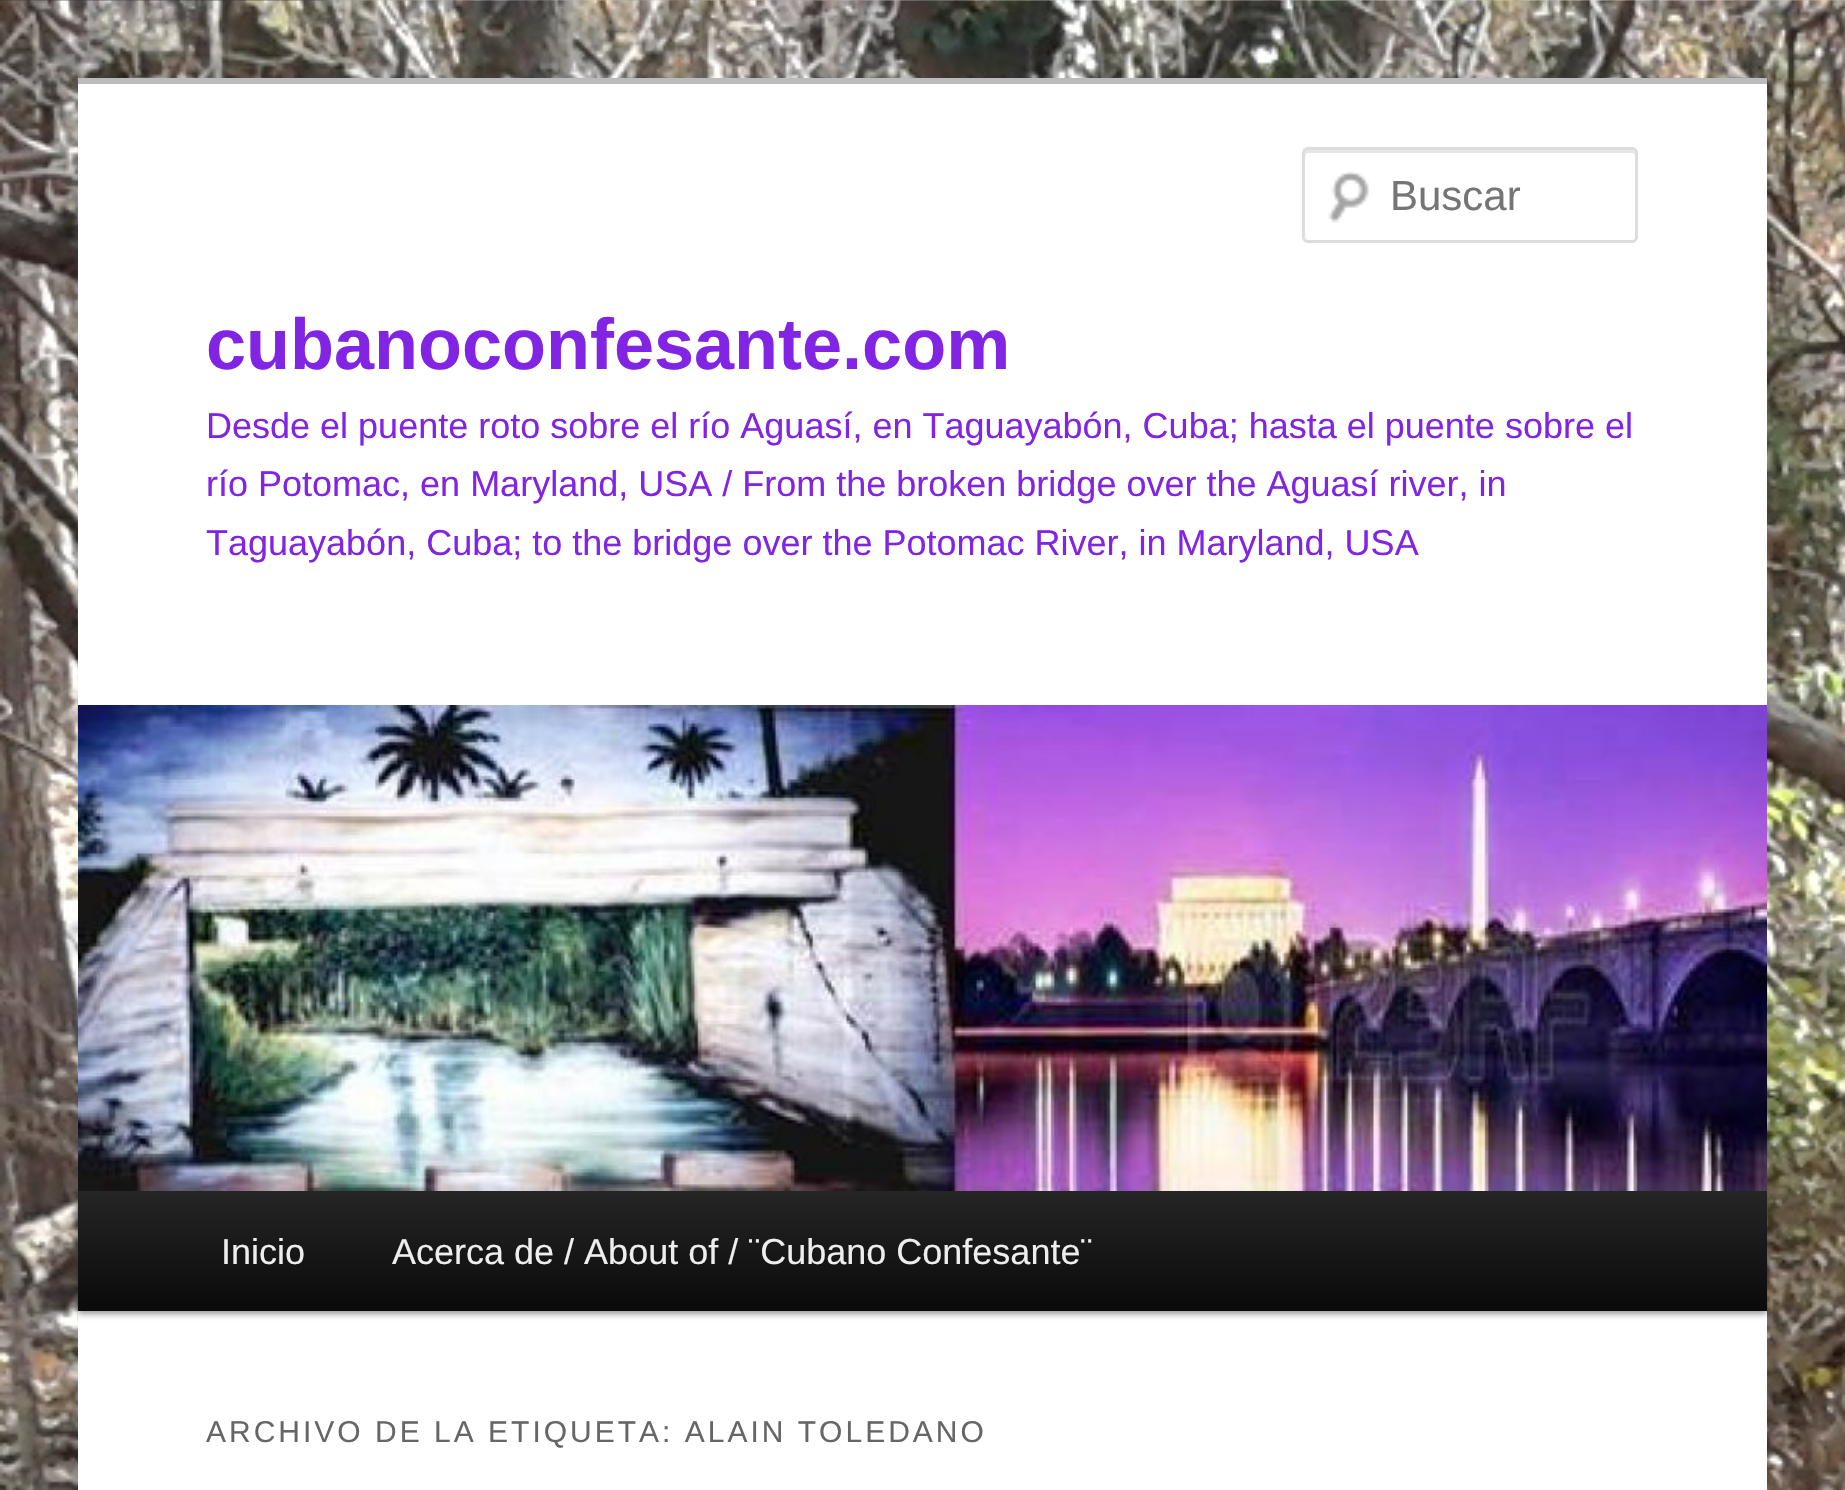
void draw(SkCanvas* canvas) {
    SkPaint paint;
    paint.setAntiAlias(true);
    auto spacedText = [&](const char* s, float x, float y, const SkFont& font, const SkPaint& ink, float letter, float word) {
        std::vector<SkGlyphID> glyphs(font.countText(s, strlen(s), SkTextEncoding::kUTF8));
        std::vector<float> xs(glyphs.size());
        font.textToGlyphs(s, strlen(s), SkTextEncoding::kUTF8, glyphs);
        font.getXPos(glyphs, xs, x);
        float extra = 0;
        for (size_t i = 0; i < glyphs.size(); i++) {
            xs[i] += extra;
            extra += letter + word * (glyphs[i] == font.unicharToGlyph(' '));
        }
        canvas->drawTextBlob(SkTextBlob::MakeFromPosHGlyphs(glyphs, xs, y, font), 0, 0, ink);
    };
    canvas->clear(0xFFFFFFFF);
    canvas->drawImageRect(SkImages::DeferredFromEncodedData(SkData::MakeFromFileName("img1.png")), SkRect::MakeXYWH(0, 0, 1845, 1490), SkSamplingOptions());
    paint.setColor(0xFFFFFFFF);
    canvas->drawRect(SkRect::MakeXYWH(78, 84, 1689, 1406), paint);
    paint.setColor(0xFFBBBBBB);
    canvas->drawRect(SkRect::MakeXYWH(78, 78, 1689, 6), paint);
    canvas->drawImageRect(SkImages::DeferredFromEncodedData(SkData::MakeFromFileName("img2.png")), SkRect::MakeXYWH(1328, 171, 41, 52), SkSamplingOptions());
    paint.setColor(0xFFE6E6E6);
    canvas->drawPath(SkPathBuilder().moveTo(1308, 153).lineTo(1632, 153).cubicTo(1634, 153, 1635, 154, 1635, 156).lineTo(1635, 153).cubicTo(1635, 151, 1634, 150, 1632, 150).lineTo(1308, 150).cubicTo(1306, 150, 1305, 151, 1305, 153).lineTo(1305, 156).cubicTo(1305, 154, 1306, 153, 1308, 153).close().detach(), paint);
    paint.setStyle(SkPaint::kStroke_Style);
    paint.setStrokeWidth(3);
    paint.setColor(0xFFDDDDDD);
    canvas->drawRoundRect(SkRect::MakeXYWH(1303.5f, 148.5f, 333, 93), 4.5f, 4.5f, paint);
    SkFont font1(fontMgr->matchFamilyStyle("Liberation Sans", SkFontStyle::Normal()), 42);
    font1.setSubpixel(true);
    paint.setStyle(SkPaint::kFill_Style);
    paint.setColor(0xFF757575);
    canvas->drawString("Buscar", 1390, 210, font1, paint);
    SkFont font2(fontMgr->matchFamilyStyle("Liberation Sans", SkFontStyle::Bold()), 72);
    font2.setSubpixel(true);
    paint.setColor(0xFF8224E3);
    canvas->drawString("cubanoconfesante.com", 206, 369, font2, paint);
    SkFont font3(fontMgr->matchFamilyStyle("Liberation Sans", SkFontStyle::Normal()), 36);
    font3.setSubpixel(true);
    canvas->drawString("Desde el puente roto sobre el río Aguasí, en Taguayabón, Cuba; hasta el puente sobre el", 206, 438, font3, paint);
    canvas->drawString("río Potomac, en Maryland, USA / From the broken bridge over the Aguasí river, in", 206, 496, font3, paint);
    canvas->drawString("Taguayabón, Cuba; to the bridge over the Potomac River, in Maryland, USA", 206, 555, font3, paint);
    paint.setColor(0x66000000);
    paint.setMaskFilter(SkMaskFilter::MakeBlur(kNormal_SkBlurStyle, 3));
    canvas->drawRect(SkRect::MakeXYWH(78, 1194, 1689, 120), paint);
    paint.setMaskFilter(nullptr);
    canvas->drawImageRect(SkImages::DeferredFromEncodedData(SkData::MakeFromFileName("img3.png")), SkRect::MakeXYWH(78, 705, 1689, 486), SkSamplingOptions());
    {
        const SkColor colors[] = {0xFF252525, 0xFF0A0A0A};
        const float stops[] = {0, 1};
        const SkPoint ends[] = {{923, 1191}, {923, 1311}};
        paint.setShader(SkGradientShader::MakeLinear(ends, colors, stops, 2, SkTileMode::kClamp));
        paint.setAlpha(255);
    }
    canvas->drawRect(SkRect::MakeXYWH(78, 1191, 1689, 120), paint);
    paint.setShader(nullptr);
    paint.setColor(0xFFEEEEEE);
    canvas->drawString("Inicio", 221, 1264, font3, paint);
    canvas->drawString("Acerca de / About of / ¨Cubano Confesante¨", 392, 1264, font3, paint);
    SkFont font4(fontMgr->matchFamilyStyle("Liberation Sans", SkFontStyle::Normal()), 30);
    font4.setSubpixel(true);
    paint.setColor(0xFF666666);
    spacedText("ARCHIVO DE LA ETIQUETA: ALAIN TOLEDANO", 206, 1442, font4, paint, 3, 0);
}
